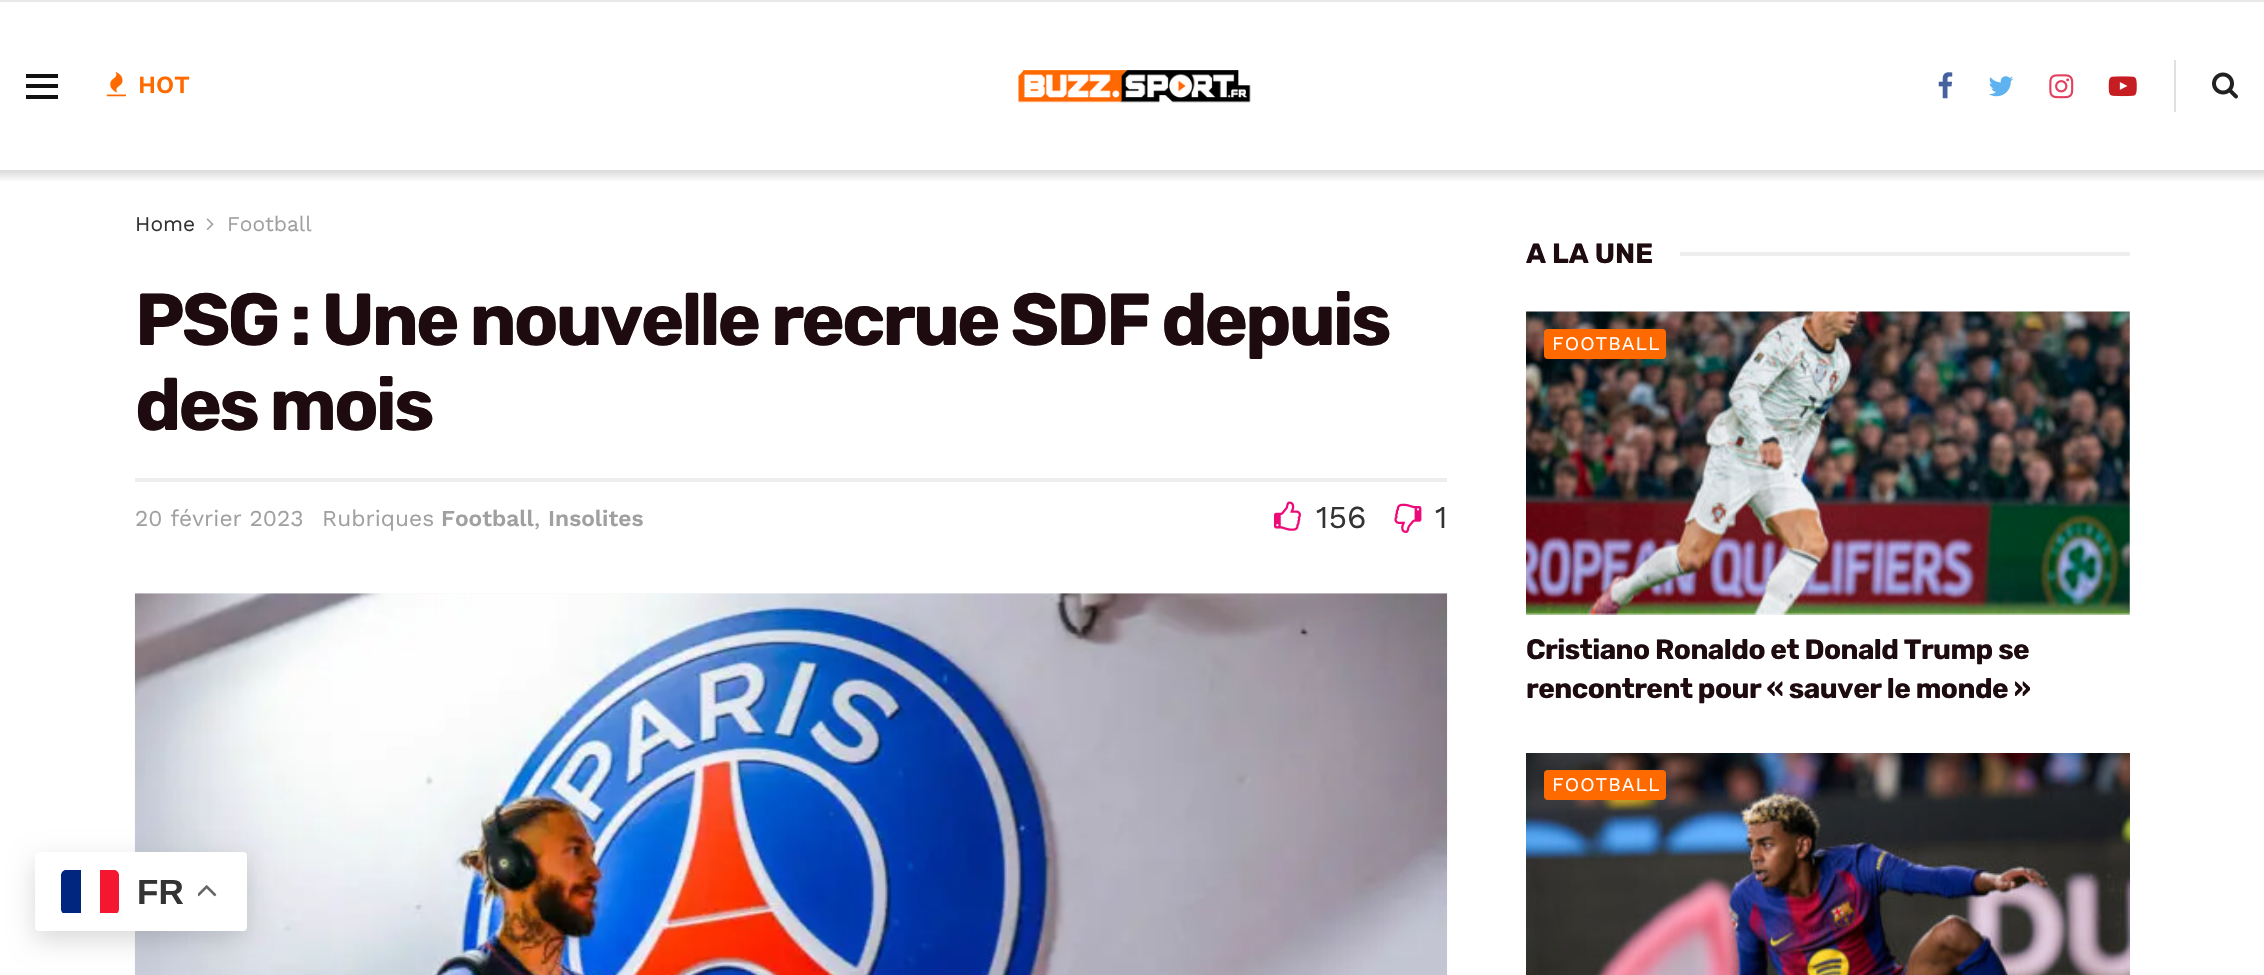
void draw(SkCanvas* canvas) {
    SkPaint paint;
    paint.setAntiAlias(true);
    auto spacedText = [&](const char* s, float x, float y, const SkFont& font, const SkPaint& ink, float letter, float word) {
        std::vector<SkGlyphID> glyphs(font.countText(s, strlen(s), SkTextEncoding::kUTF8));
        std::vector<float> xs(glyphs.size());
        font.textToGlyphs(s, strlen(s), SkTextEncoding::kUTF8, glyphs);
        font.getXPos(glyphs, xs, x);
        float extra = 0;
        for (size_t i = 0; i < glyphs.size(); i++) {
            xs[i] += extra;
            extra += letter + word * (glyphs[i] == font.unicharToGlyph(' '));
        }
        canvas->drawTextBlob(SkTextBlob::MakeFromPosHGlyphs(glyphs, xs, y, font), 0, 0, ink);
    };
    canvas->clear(0xFFFFFFFF);
    paint.setColor(0xFFE8E8E8);
    canvas->drawRect(SkRect::MakeXYWH(0, 0, 2264, 2), paint);
    paint.setColor(0xFF111111);
    canvas->drawRect(SkRect::MakeXYWH(26, 74, 32, 4), paint);
    canvas->drawRect(SkRect::MakeXYWH(26, 84, 32, 4), paint);
    canvas->drawRect(SkRect::MakeXYWH(26, 95, 32, 4), paint);
    canvas->drawImageRect(SkImages::DeferredFromEncodedData(SkData::MakeFromFileName("img1.png")), SkRect::MakeXYWH(106, 71, 20, 26), SkSamplingOptions());
    SkFont font1(fontMgr->matchFamilyStyle("Work Sans", SkFontStyle(600, SkFontStyle::kNormal_Width, SkFontStyle::kUpright_Slant)), 24.5f);
    font1.setSubpixel(true);
    paint.setColor(0xFFFF6A00);
    canvas->drawString("HOT", 138, 93, font1, paint);
    canvas->drawImageRect(SkImages::DeferredFromEncodedData(SkData::MakeFromFileName("img2.png")), SkRect::MakeXYWH(1018, 70, 233, 33), SkSamplingOptions());
    canvas->drawImageRect(SkImages::DeferredFromEncodedData(SkData::MakeFromFileName("img3.png")), SkRect::MakeXYWH(1938, 72, 15, 27), SkSamplingOptions());
    canvas->drawImageRect(SkImages::DeferredFromEncodedData(SkData::MakeFromFileName("img4.png")), SkRect::MakeXYWH(1989, 76, 25, 21), SkSamplingOptions());
    canvas->drawImageRect(SkImages::DeferredFromEncodedData(SkData::MakeFromFileName("img5.png")), SkRect::MakeXYWH(2049, 74, 25, 25), SkSamplingOptions());
    canvas->drawImageRect(SkImages::DeferredFromEncodedData(SkData::MakeFromFileName("img6.png")), SkRect::MakeXYWH(2108, 76, 29, 21), SkSamplingOptions());
    paint.setColor(0xFFE0E0E0);
    canvas->drawRect(SkRect::MakeXYWH(2174, 60, 2, 52), paint);
    canvas->drawImageRect(SkImages::DeferredFromEncodedData(SkData::MakeFromFileName("img7.png")), SkRect::MakeXYWH(2212, 72, 26, 27), SkSamplingOptions());
    {
        const SkColor colors[] = {0xFFD9D9D9, 0xFFFFFFFF};
        const float stops[] = {0, 1};
        const SkPoint ends[] = {{1132, 170}, {1132, 182}};
        paint.setShader(SkGradientShader::MakeLinear(ends, colors, stops, 2, SkTileMode::kClamp));
        paint.setAlpha(255);
    }
    canvas->drawRect(SkRect::MakeXYWH(0, 170, 2264, 11), paint);
    SkFont font2(fontMgr->matchFamilyStyle("Work Sans", SkFontStyle::Normal()), 21);
    font2.setSubpixel(true);
    paint.setShader(nullptr);
    paint.setColor(0xFF333333);
    canvas->drawString("Home", 135, 231, font2, paint);
    canvas->drawImageRect(SkImages::DeferredFromEncodedData(SkData::MakeFromFileName("img8.png")), SkRect::MakeXYWH(206, 218, 8, 12), SkSamplingOptions());
    paint.setColor(0xFFA0A0A0);
    canvas->drawString("Football", 227, 231, font2, paint);
    SkFont font3(fontMgr->matchFamilyStyle("Rubik", SkFontStyle::Bold()), 73.5f);
    font3.setSubpixel(true);
    paint.setColor(0xFF1E0B0F);
    spacedText("PSG : Une nouvelle recrue SDF depuis", 135, 345, font3, paint, -2.95f, 0);
    spacedText("des mois", 135, 430, font3, paint, -2.95f, 0);
    paint.setColor(0xFFEEEEEE);
    canvas->drawRect(SkRect::MakeXYWH(135, 478, 1312, 4), paint);
    SkFont font4(fontMgr->matchFamilyStyle("Work Sans", SkFontStyle::Normal()), 22.75f);
    font4.setSubpixel(true);
    paint.setColor(0xFFA0A0A0);
    canvas->drawString("20 février 2023", 135, 526, font4, paint);
    canvas->drawString("Rubriques", 322, 526, font4, paint);
    SkFont font5(fontMgr->matchFamilyStyle("Work Sans", SkFontStyle(600, SkFontStyle::kNormal_Width, SkFontStyle::kUpright_Slant)), 22.75f);
    font5.setSubpixel(true);
    canvas->drawString("Football", 441, 526, font5, paint);
    canvas->drawString(",", 534, 526, font4, paint);
    canvas->drawString("Insolites", 548, 526, font5, paint);
    canvas->drawImageRect(SkImages::DeferredFromEncodedData(SkData::MakeFromFileName("img9.png")), SkRect::MakeXYWH(1274, 501, 27, 30), SkSamplingOptions());
    SkFont font6(fontMgr->matchFamilyStyle("Work Sans", SkFontStyle::Normal()), 32);
    font6.setSubpixel(true);
    paint.setColor(0xFF333333);
    canvas->drawString("156", 1316, 528, font6, paint);
    canvas->drawImageRect(SkImages::DeferredFromEncodedData(SkData::MakeFromFileName("img10.png")), SkRect::MakeXYWH(1394, 503, 28, 30), SkSamplingOptions());
    canvas->drawString("1", 1435, 528, font6, paint);
    paint.setColor(0xFFF7F7F7);
    canvas->drawRect(SkRect::MakeXYWH(135, 593, 1312, 1), paint);
    canvas->drawImageRect(SkImages::DeferredFromEncodedData(SkData::MakeFromFileName("img11.png")), SkRect::MakeXYWH(134, 593, 1314, 382), SkSamplingOptions());
    SkFont font7(fontMgr->matchFamilyStyle("Rubik", SkFontStyle::Bold()), 28);
    font7.setSubpixel(true);
    paint.setColor(0xFF1E0B0F);
    canvas->drawString("A LA UNE", 1526, 263, font7, paint);
    paint.setColor(0xFFEEEEEE);
    canvas->drawRect(SkRect::MakeXYWH(1680, 252, 450, 4), paint);
    paint.setColor(0xFFF7F7F7);
    canvas->drawRect(SkRect::MakeXYWH(1526, 312, 604, 302), paint);
    canvas->drawImageRect(SkImages::DeferredFromEncodedData(SkData::MakeFromFileName("img13.png")), SkRect::MakeXYWH(1526, 614, 604, 1), SkSamplingOptions());
    canvas->drawImageRect(SkImages::DeferredFromEncodedData(SkData::MakeFromFileName("img12.png")), SkRect::MakeXYWH(1526, 311, 604, 304), SkSamplingOptions());
    paint.setColor(0xFFFF6A00);
    canvas->drawRoundRect(SkRect::MakeXYWH(1544, 329, 122, 30), 4, 4, paint);
    SkFont font8(fontMgr->matchFamilyStyle("Work Sans", SkFontStyle::Normal()), 19.25f);
    font8.setSubpixel(true);
    paint.setColor(0xFFFFFFFF);
    spacedText("FOOTBALL", 1552, 350, font8, paint, 1, 0);
    paint.setColor(0xFF1E0B0F);
    spacedText("Cristiano Ronaldo et Donald Trump se", 1526, 659, font7, paint, -0.55f, 0);
    spacedText("rencontrent pour « sauver le monde »", 1526, 698, font7, paint, -0.55f, 0);
    canvas->drawImageRect(SkImages::DeferredFromEncodedData(SkData::MakeFromFileName("img14.png")), SkRect::MakeXYWH(1526, 753, 604, 222), SkSamplingOptions());
    paint.setColor(0xFFFF6A00);
    canvas->drawRoundRect(SkRect::MakeXYWH(1544, 770, 122, 30), 4, 4, paint);
    paint.setColor(0xFFFFFFFF);
    spacedText("FOOTBALL", 1552, 791, font8, paint, 1, 0);
    paint.setColor(0x26000000);
    paint.setMaskFilter(SkMaskFilter::MakeBlur(kNormal_SkBlurStyle, 13));
    canvas->drawRoundRect(SkRect::MakeXYWH(35, 861, 212, 79), 4, 4, paint);
    paint.setMaskFilter(nullptr);
    paint.setColor(0xFFFFFFFF);
    canvas->drawRoundRect(SkRect::MakeXYWH(35, 852, 212, 79), 4, 4, paint);
    canvas->save();
    canvas->clipPath(SkPathBuilder().moveTo(66, 870).lineTo(114, 870).cubicTo(117, 870, 119, 872, 119, 875).lineTo(119, 909).cubicTo(119, 912, 117, 914, 114, 914).lineTo(66, 914).cubicTo(63, 914, 61, 912, 61, 909).lineTo(61, 875).cubicTo(61, 872, 63, 870, 66, 870).close().detach(), true);
    paint.setColor(0xFF00267F);
    canvas->drawPath(SkPathBuilder().moveTo(66, 870).lineTo(81, 870).lineTo(81, 913).lineTo(61, 913).lineTo(61, 875).cubicTo(61, 872, 63, 870, 66, 870).close().detach(), paint);
    paint.setColor(0xFFF31830);
    canvas->drawPath(SkPathBuilder().moveTo(100, 870).lineTo(114, 870).cubicTo(117, 870, 119, 872, 119, 875).lineTo(119, 913).lineTo(100, 913).close().detach(), paint);
    canvas->restore();
    SkFont font9(fontMgr->matchFamilyStyle("Liberation Sans", SkFontStyle::Bold()), 35);
    font9.setSubpixel(true);
    paint.setColor(0xFF333333);
    canvas->drawString("FR", 137, 904, font9, paint);
    canvas->drawImageRect(SkImages::DeferredFromEncodedData(SkData::MakeFromFileName("img15.png")), SkRect::MakeXYWH(198, 885, 19, 12), SkSamplingOptions());
}
